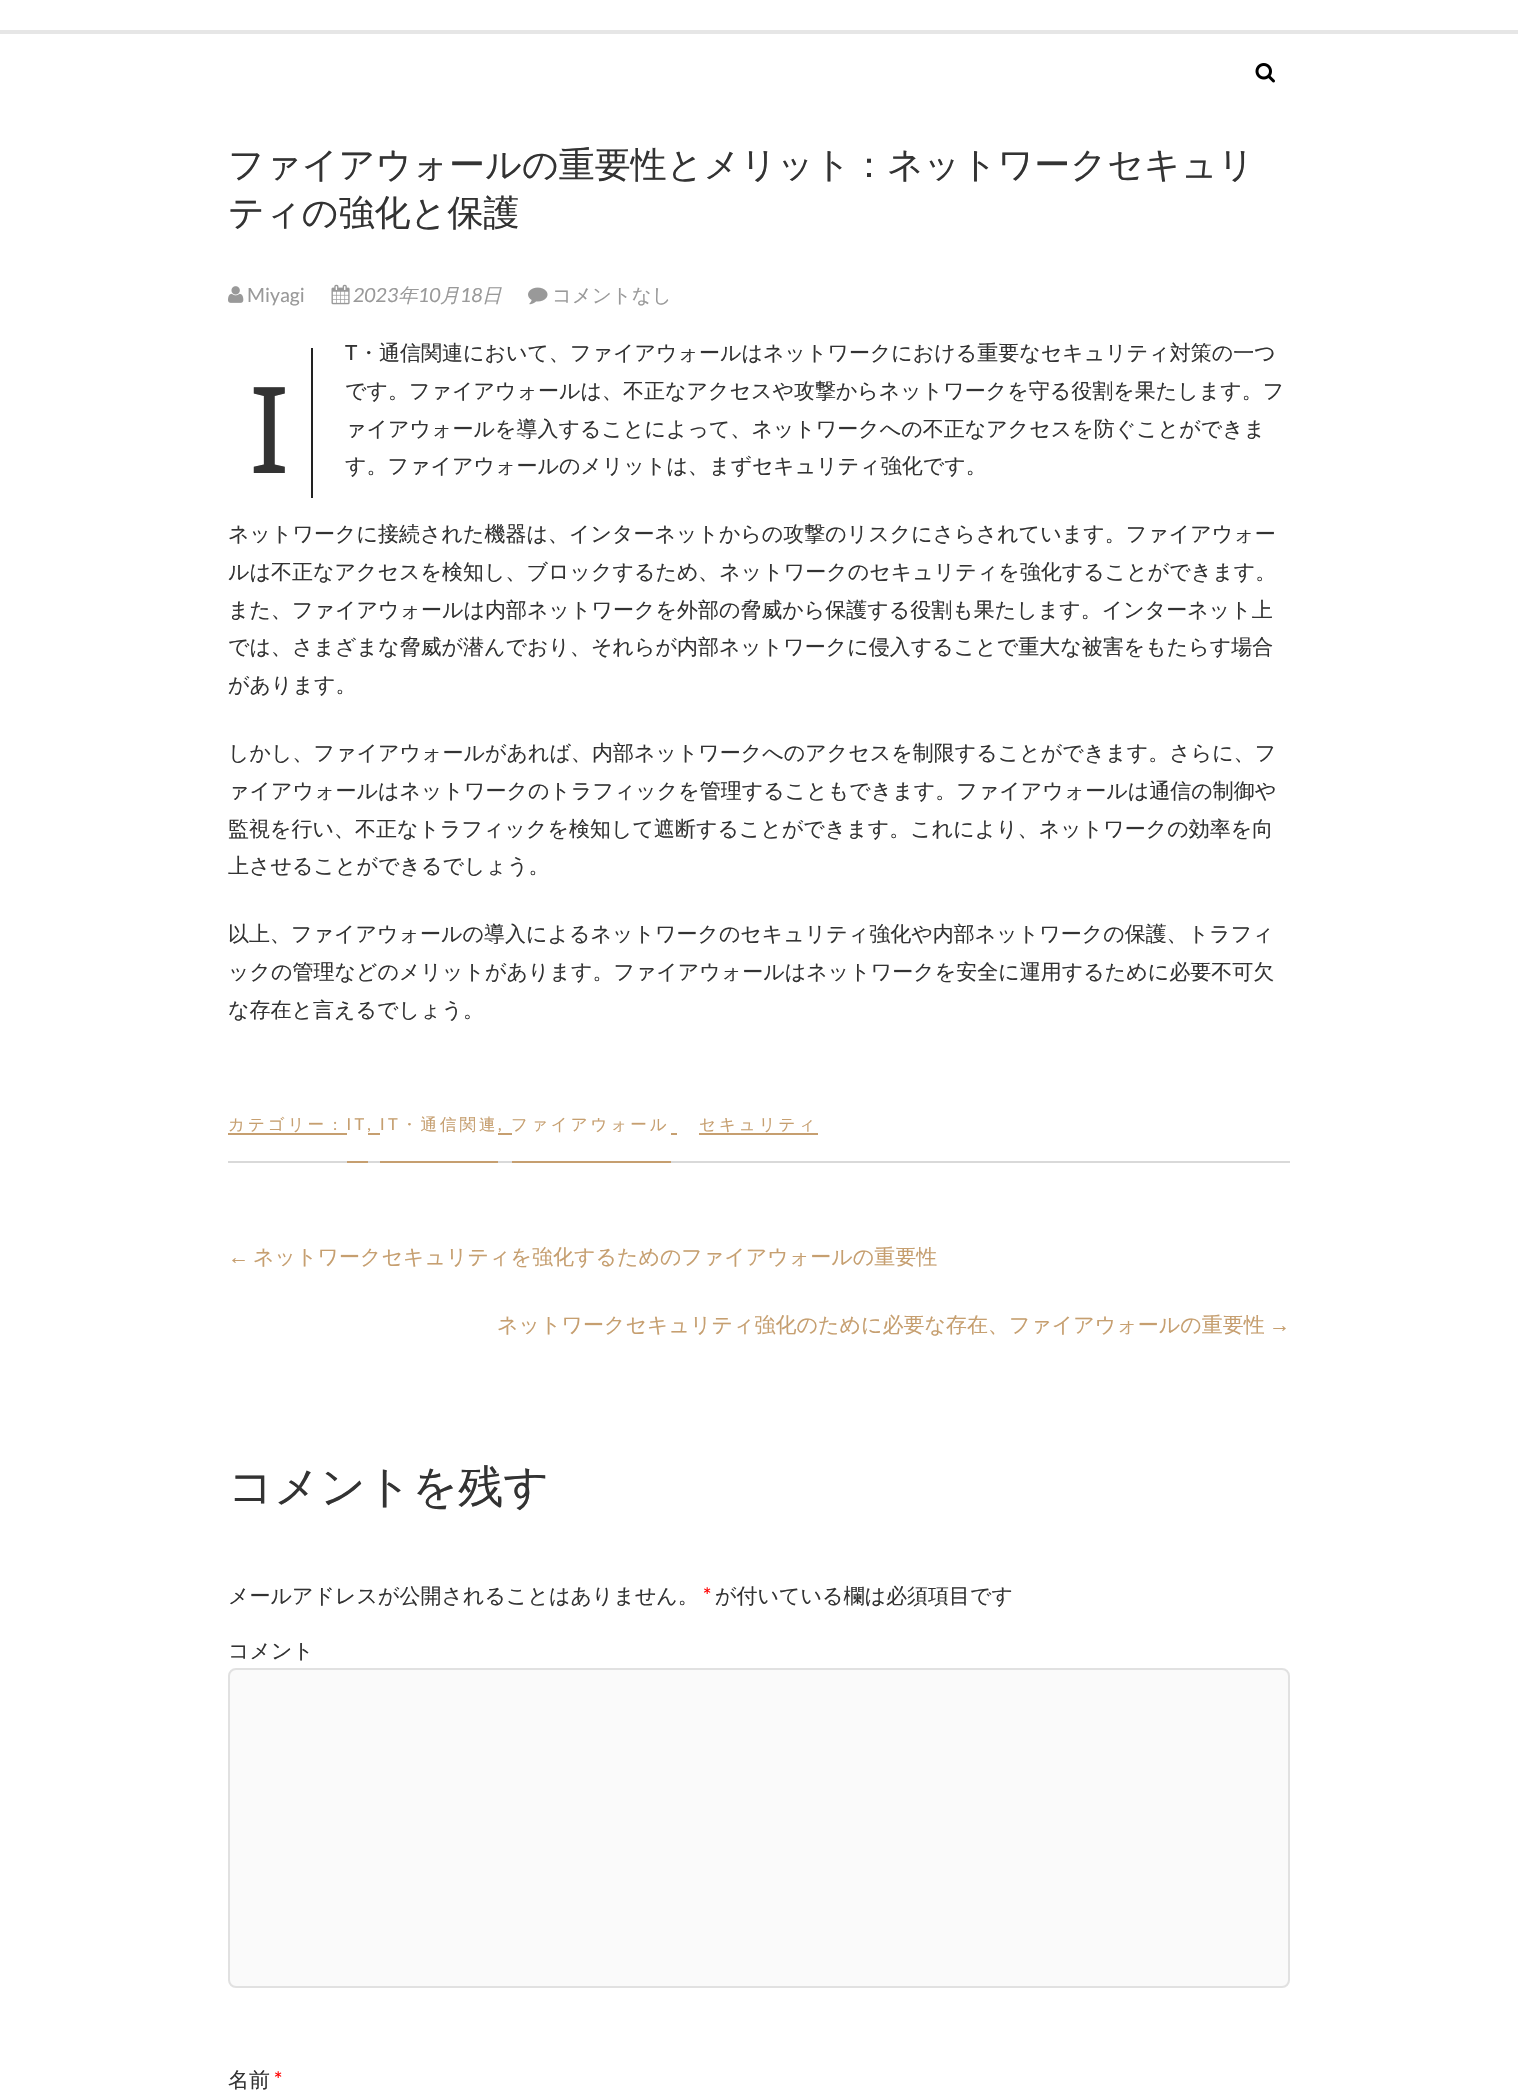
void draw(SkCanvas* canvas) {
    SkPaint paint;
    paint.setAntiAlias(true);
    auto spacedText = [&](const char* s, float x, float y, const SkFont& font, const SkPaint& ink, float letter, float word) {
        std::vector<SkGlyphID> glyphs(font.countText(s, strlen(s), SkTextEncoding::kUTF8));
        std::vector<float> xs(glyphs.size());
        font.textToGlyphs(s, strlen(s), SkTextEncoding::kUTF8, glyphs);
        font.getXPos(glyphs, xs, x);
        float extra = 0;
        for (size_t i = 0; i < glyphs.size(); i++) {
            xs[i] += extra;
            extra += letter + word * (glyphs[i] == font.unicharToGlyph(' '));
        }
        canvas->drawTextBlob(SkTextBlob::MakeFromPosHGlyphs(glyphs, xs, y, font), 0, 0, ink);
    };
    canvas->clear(0xFFFFFFFF);
    paint.setColor(0xFFE6E6E6);
    canvas->drawRect(SkRect::MakeXYWH(0, 30, 1518, 4), paint);
    canvas->drawImageRect(SkImages::DeferredFromEncodedData(SkData::MakeFromFileName("img1.png")), SkRect::MakeXYWH(1255, 63, 20, 20), SkSamplingOptions());
    SkFont font1(fontMgr->matchFamilyStyle("WenQuanYi Zen Hei", SkFontStyle(500, SkFontStyle::kNormal_Width, SkFontStyle::kUpright_Slant)), 36);
    font1.setSubpixel(true);
    paint.setColor(0xFF333333);
    canvas->drawString("ファイアウォールの重要性とメリット：ネットワークセキュリ", 228, 177, font1, paint);
    canvas->drawString("ティの強化と保護", 228, 225, font1, paint);
    canvas->drawImageRect(SkImages::DeferredFromEncodedData(SkData::MakeFromFileName("img2.png")), SkRect::MakeXYWH(228, 286, 16, 17), SkSamplingOptions());
    SkFont font2(fontMgr->matchFamilyStyle("Lato", SkFontStyle::Normal()), 19.5f);
    font2.setSubpixel(true);
    paint.setColor(0xFF999999);
    canvas->drawString("Miyagi", 247, 302, font2, paint);
    canvas->drawImageRect(SkImages::DeferredFromEncodedData(SkData::MakeFromFileName("img3.png")), SkRect::MakeXYWH(331, 284, 19, 21), SkSamplingOptions());
    SkFont font3(fontMgr->matchFamilyStyle("Lato", SkFontStyle::Italic()), 19.5f);
    font3.setSubpixel(true);
    canvas->drawString("2023", 353, 302, font3, paint);
    SkFont font4(fontMgr->matchFamilyStyle("WenQuanYi Zen Hei", SkFontStyle(500, SkFontStyle::kNormal_Width, SkFontStyle::kItalic_Slant)), 19.5f);
    font4.setSubpixel(true);
    canvas->drawString("年", 398, 302, font4, paint);
    canvas->drawString("10", 418, 302, font3, paint);
    canvas->drawString("月", 440, 302, font4, paint);
    canvas->drawString("18", 460, 302, font3, paint);
    canvas->drawString("日", 482, 302, font4, paint);
    canvas->drawImageRect(SkImages::DeferredFromEncodedData(SkData::MakeFromFileName("img4.png")), SkRect::MakeXYWH(528, 287, 20, 18), SkSamplingOptions());
    SkFont font5(fontMgr->matchFamilyStyle("WenQuanYi Zen Hei", SkFontStyle(500, SkFontStyle::kNormal_Width, SkFontStyle::kUpright_Slant)), 19.5f);
    font5.setSubpixel(true);
    canvas->drawString("コメントなし", 552, 302, font5, paint);
    SkFont font6(fontMgr->matchFamilyStyle("Lato", SkFontStyle::Normal()), 21);
    font6.setSubpixel(true);
    paint.setColor(0xFF333333);
    canvas->drawString("T", 345, 360, font6, paint);
    SkFont font7(fontMgr->matchFamilyStyle("WenQuanYi Zen Hei", SkFontStyle(500, SkFontStyle::kNormal_Width, SkFontStyle::kUpright_Slant)), 21);
    font7.setSubpixel(true);
    canvas->drawString("・通信関連において、ファイアウォールはネットワークにおける重要なセキュリティ対策の一つ", 358, 360, font7, paint);
    paint.setColor(0xFF222222);
    canvas->drawRect(SkRect::MakeXYWH(311, 348, 2, 150), paint);
    SkFont font8(fontMgr->matchFamilyStyle("Noto Sans", SkFontStyle::Normal()), 120);
    font8.setSubpixel(true);
    paint.setColor(0xFF333333);
    canvas->drawString("I", 249, 473, font8, paint);
    canvas->drawString("です。ファイアウォールは、不正なアクセスや攻撃からネットワークを守る役割を果たします。フ", 345, 398, font7, paint);
    canvas->drawString("ァイアウォールを導入することによって、ネットワークへの不正なアクセスを防ぐことができま", 345, 436, font7, paint);
    canvas->drawString("す。ファイアウォールのメリットは、まずセキュリティ強化です。", 345, 473, font7, paint);
    canvas->drawString("ネットワークに接続された機器は、インターネットからの攻撃のリスクにさらされています。ファイアウォー", 228, 541, font7, paint);
    canvas->drawString("ルは不正なアクセスを検知し、ブロックするため、ネットワークのセキュリティを強化することができます。", 228, 579, font7, paint);
    canvas->drawString("また、ファイアウォールは内部ネットワークを外部の脅威から保護する役割も果たします。インターネット上", 228, 617, font7, paint);
    canvas->drawString("では、さまざまな脅威が潜んでおり、それらが内部ネットワークに侵入することで重大な被害をもたらす場合", 228, 654, font7, paint);
    canvas->drawString("があります。", 228, 692, font7, paint);
    canvas->drawString("しかし、ファイアウォールがあれば、内部ネットワークへのアクセスを制限することができます。さらに、フ", 228, 760, font7, paint);
    canvas->drawString("ァイアウォールはネットワークのトラフィックを管理することもできます。ファイアウォールは通信の制御や", 228, 798, font7, paint);
    canvas->drawString("監視を行い、不正なトラフィックを検知して遮断することができます。これにより、ネットワークの効率を向", 228, 836, font7, paint);
    canvas->drawString("上させることができるでしょう。", 228, 873, font7, paint);
    canvas->drawString("以上、ファイアウォールの導入によるネットワークのセキュリティ強化や内部ネットワークの保護、トラフィ", 228, 941, font7, paint);
    canvas->drawString("ックの管理などのメリットがあります。ファイアウォールはネットワークを安全に運用するために必要不可欠", 228, 979, font7, paint);
    canvas->drawString("な存在と言えるでしょう。", 228, 1017, font7, paint);
    paint.setColor(0xFFD9D9D9);
    canvas->drawRect(SkRect::MakeXYWH(228, 1161, 1062, 2), paint);
    paint.setColor(0xFFC69F70);
    canvas->drawRect(SkRect::MakeXYWH(228, 1133, 119, 2), paint);
    canvas->drawRect(SkRect::MakeXYWH(347, 1161, 21, 2), paint);
    canvas->drawRect(SkRect::MakeXYWH(368, 1133, 12, 2), paint);
    canvas->drawRect(SkRect::MakeXYWH(380, 1161, 118, 2), paint);
    canvas->drawRect(SkRect::MakeXYWH(498, 1133, 14, 2), paint);
    canvas->drawRect(SkRect::MakeXYWH(512, 1161, 159, 2), paint);
    canvas->drawRect(SkRect::MakeXYWH(671, 1133, 6, 2), paint);
    SkFont font9(fontMgr->matchFamilyStyle("WenQuanYi Zen Hei", SkFontStyle(500, SkFontStyle::kNormal_Width, SkFontStyle::kUpright_Slant)), 16.5f);
    font9.setSubpixel(true);
    spacedText("カテゴリー", 228, 1130, font9, paint, 3, 0);
    SkFont font10(fontMgr->matchFamilyStyle("Lato", SkFontStyle::Normal()), 16.5f);
    font10.setSubpixel(true);
    spacedText(": IT, IT", 333, 1130, font10, paint, 3, 0);
    spacedText("・通信関連", 401, 1130, font9, paint, 3, 0);
    spacedText(",", 498, 1130, font10, paint, 3, 0);
    spacedText("ファイアウォール", 511, 1130, font9, paint, 3, 0);
    canvas->drawRect(SkRect::MakeXYWH(699, 1133, 119, 2), paint);
    spacedText("セキュリティ", 699, 1130, font9, paint, 3, 0);
    SkFont font11(fontMgr->matchFamilyStyle("Liberation Sans", SkFontStyle::Normal()), 21);
    font11.setSubpixel(true);
    canvas->drawString("←", 228, 1264, font11, paint);
    canvas->drawString("ネットワークセキュリティを強化するためのファイアウォールの重要性", 253, 1264, font7, paint);
    canvas->drawString("ネットワークセキュリティ強化のために必要な存在、ファイアウォールの重要性", 497, 1332, font7, paint);
    canvas->drawString("→", 1269, 1332, font11, paint);
    SkFont font12(fontMgr->matchFamilyStyle("WenQuanYi Zen Hei", SkFontStyle(500, SkFontStyle::kNormal_Width, SkFontStyle::kUpright_Slant)), 45);
    font12.setSubpixel(true);
    paint.setColor(0xFF333333);
    canvas->drawString("コメントを残す", 228, 1502, font12, paint);
    canvas->drawString("メールアドレスが公開されることはありません。", 228, 1603, font7, paint);
    paint.setColor(0xFFFF0000);
    canvas->drawString("*", 703, 1603, font6, paint);
    paint.setColor(0xFF333333);
    canvas->drawString("が付いている欄は必須項目です", 715, 1603, font7, paint);
    canvas->drawString("コメント", 228, 1658, font7, paint);
    paint.setColor(0xFFFAFAFA);
    canvas->drawRoundRect(SkRect::MakeXYWH(229, 1669, 1060, 318), 7, 7, paint);
    paint.setStyle(SkPaint::kStroke_Style);
    paint.setStrokeWidth(2);
    paint.setColor(0xFFE1E1E1);
    canvas->drawRoundRect(SkRect::MakeXYWH(229, 1669, 1060, 318), 7, 7, paint);
    paint.setStyle(SkPaint::kFill_Style);
    paint.setColor(0xFF333333);
    canvas->drawString("名前", 228, 2087, font7, paint);
    paint.setColor(0xFFFF0000);
    canvas->drawString("*", 274, 2087, font6, paint);
}
